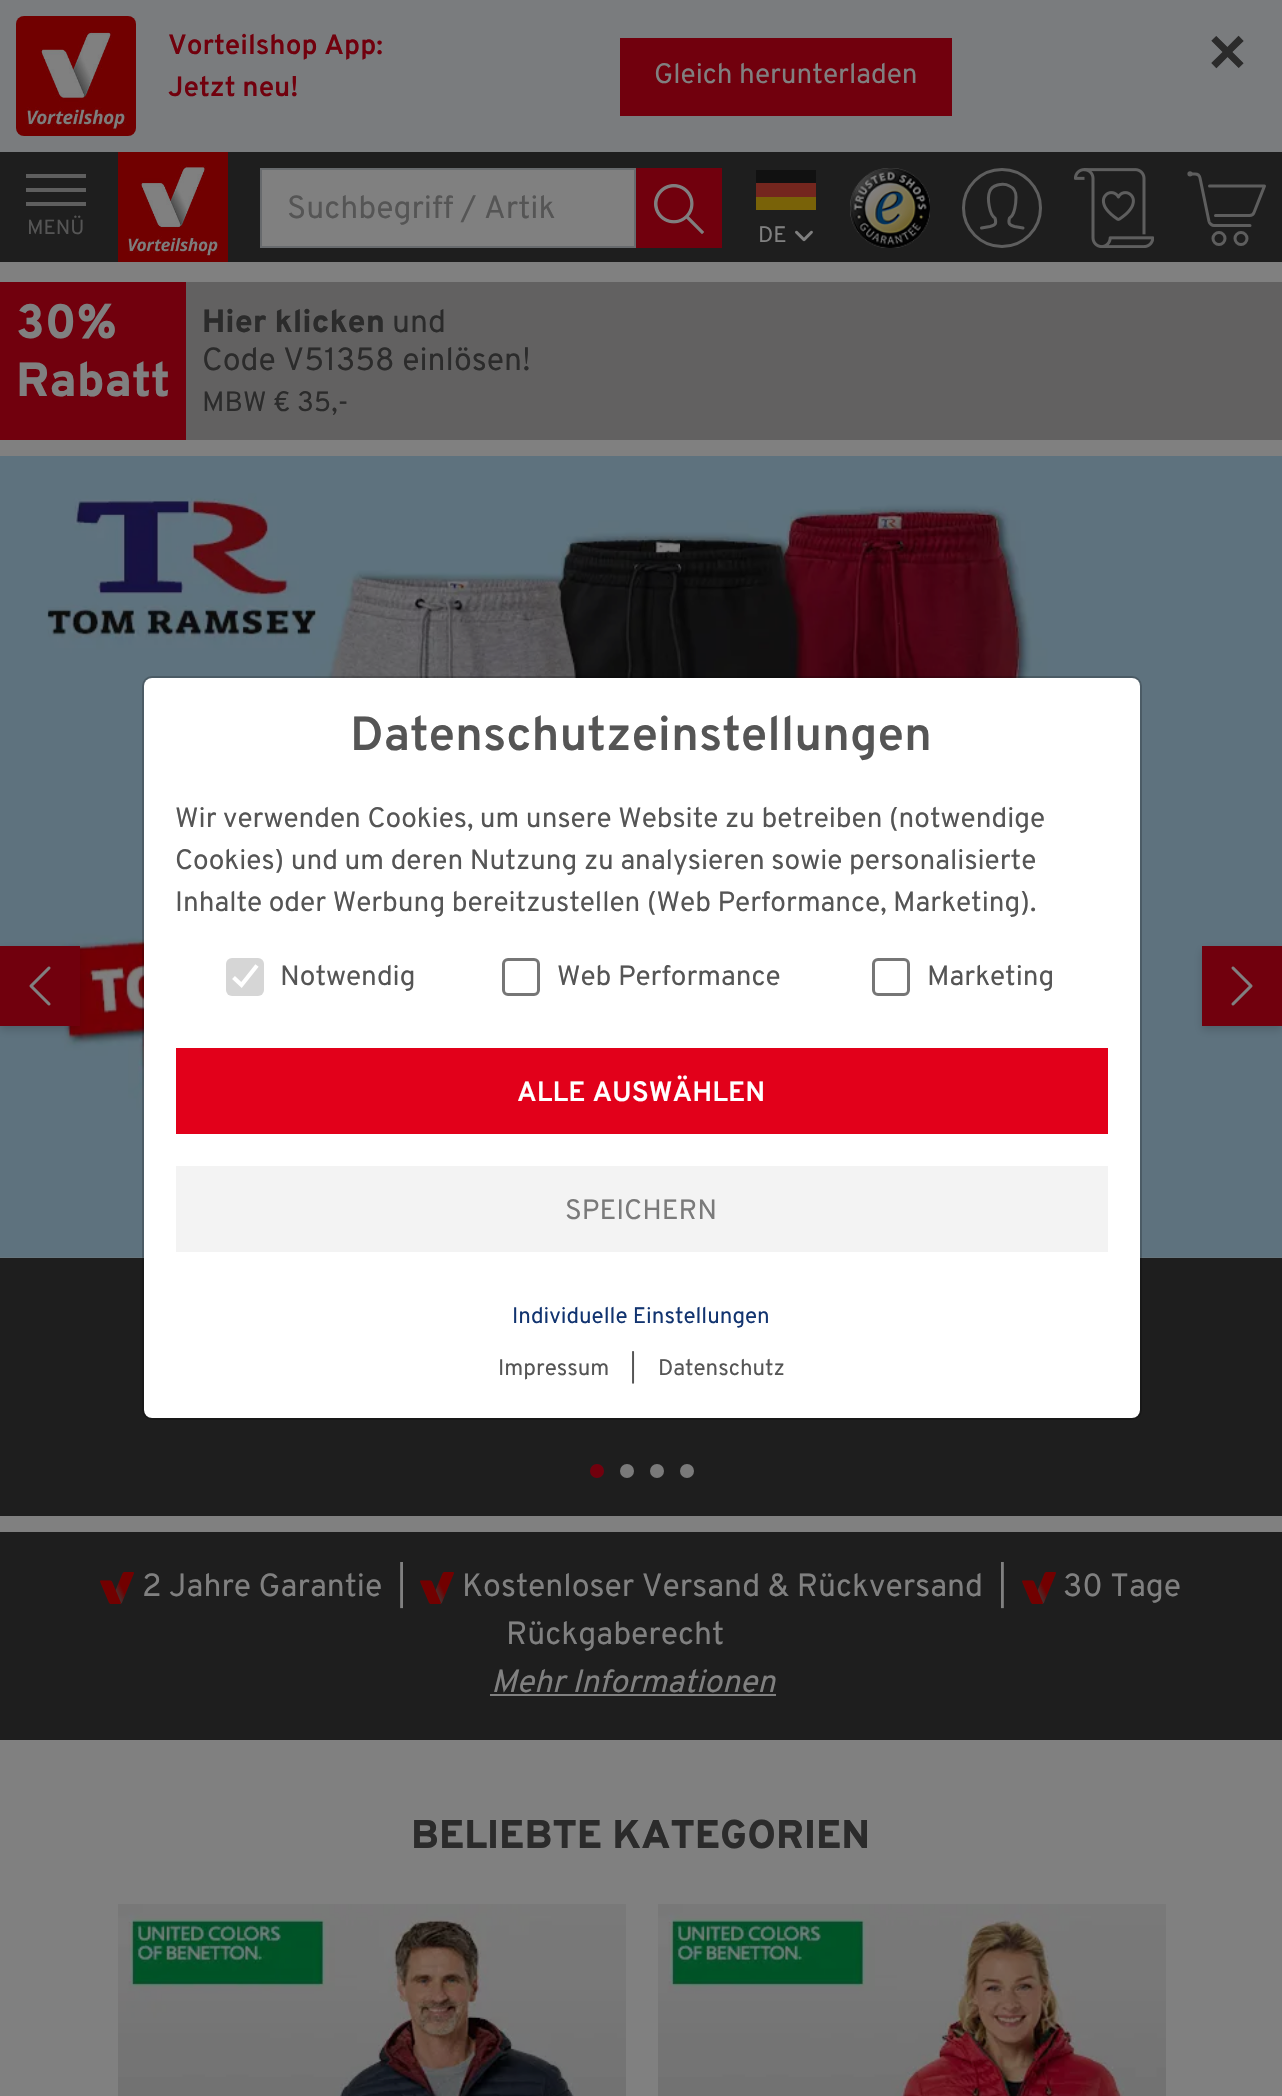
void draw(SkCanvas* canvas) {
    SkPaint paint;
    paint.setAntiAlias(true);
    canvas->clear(0xFF808080);
    paint.setColor(0xFF1E1E1E);
    canvas->drawRect(SkRect::MakeXYWH(0, 152, 1282, 110), paint);
    paint.setColor(0xFF7A7C7E);
    canvas->drawRect(SkRect::MakeXYWH(0, 0, 1282, 152), paint);
    canvas->drawImageRect(SkImages::DeferredFromEncodedData(SkData::MakeFromFileName("img1.png")), SkRect::MakeXYWH(16, 16, 120, 120), SkSamplingOptions());
    SkFont font1(fontMgr->matchFamilyStyle("Overpass", SkFontStyle(600, SkFontStyle::kNormal_Width, SkFontStyle::kUpright_Slant)), 28);
    font1.setSubpixel(true);
    paint.setColor(0xFF71000D);
    canvas->drawString("Vorteilshop App:", 168, 54, font1, paint);
    canvas->drawString("Jetzt neu!", 168, 96, font1, paint);
    canvas->drawRect(SkRect::MakeXYWH(620, 38, 332, 78), paint);
    SkFont font2(fontMgr->matchFamilyStyle("Overpass", SkFontStyle::Normal()), 28);
    font2.setSubpixel(true);
    paint.setColor(0xFF808080);
    canvas->drawString("Gleich herunterladen", 654, 83, font2, paint);
    SkFont font3(fontMgr->matchFamilyStyle("Overpass", SkFontStyle(500, SkFontStyle::kNormal_Width, SkFontStyle::kUpright_Slant)), 70);
    font3.setSubpixel(true);
    paint.setColor(0xFF2B2B2B);
    canvas->drawString("×", 1205, 76, font3, paint);
    paint.setColor(0xFF5E5E5E);
    canvas->drawRect(SkRect::MakeXYWH(26, 174, 60, 4), paint);
    canvas->drawRect(SkRect::MakeXYWH(26, 188, 60, 4), paint);
    canvas->drawRect(SkRect::MakeXYWH(26, 202, 60, 4), paint);
    SkFont font4(fontMgr->matchFamilyStyle("Overpass", SkFontStyle::Normal()), 20.5f);
    font4.setSubpixel(true);
    paint.setColor(0xFF555555);
    canvas->drawString("MENÜ", 27, 234, font4, paint);
    canvas->drawImageRect(SkImages::DeferredFromEncodedData(SkData::MakeFromFileName("img2.png")), SkRect::MakeXYWH(118, 152, 110, 110), SkSamplingOptions());
    paint.setColor(0xFF808080);
    canvas->drawRect(SkRect::MakeXYWH(261, 169, 374, 78), paint);
    paint.setStyle(SkPaint::kStroke_Style);
    paint.setStrokeWidth(2);
    paint.setColor(0xFF676A6D);
    canvas->drawRect(SkRect::MakeXYWH(261, 169, 374, 78), paint);
    SkFont font5(fontMgr->matchFamilyStyle("Overpass", SkFontStyle::Normal()), 32);
    font5.setSubpixel(true);
    paint.setStyle(SkPaint::kFill_Style);
    paint.setColor(0xFF555555);
    canvas->drawString("Suchbegriff / Artik", 287, 218, font5, paint);
    paint.setColor(0xFF71000D);
    canvas->drawRect(SkRect::MakeXYWH(636, 168, 86, 80), paint);
    canvas->drawImageRect(SkImages::DeferredFromEncodedData(SkData::MakeFromFileName("img3.png")), SkRect::MakeXYWH(654, 184, 50, 50), SkSamplingOptions());
    paint.setColor(0xFF111111);
    canvas->drawRect(SkRect::MakeXYWH(756, 170, 60, 13), paint);
    paint.setColor(0xFF74261E);
    canvas->drawRect(SkRect::MakeXYWH(756, 183, 60, 14), paint);
    paint.setColor(0xFF796208);
    canvas->drawRect(SkRect::MakeXYWH(756, 197, 60, 13), paint);
    SkFont font6(fontMgr->matchFamilyStyle("Overpass", SkFontStyle::Normal()), 22.4f);
    font6.setSubpixel(true);
    paint.setColor(0xFF808080);
    canvas->drawString("DE", 758, 242, font6, paint);
    canvas->drawImageRect(SkImages::DeferredFromEncodedData(SkData::MakeFromFileName("img4.png")), SkRect::MakeXYWH(795, 230, 18, 12), SkSamplingOptions());
    canvas->drawImageRect(SkImages::DeferredFromEncodedData(SkData::MakeFromFileName("img5.png")), SkRect::MakeXYWH(850, 168, 80, 80), SkSamplingOptions());
    paint.setStyle(SkPaint::kStroke_Style);
    paint.setStrokeWidth(3);
    paint.setColor(0xFF5E5E5E);
    canvas->drawCircle(1002, 208, 38.5f, paint);
    paint.setStrokeCap(SkPaint::kRound_Cap);
    paint.setStrokeJoin(SkPaint::kRound_Join);
    canvas->drawPath(SkPathBuilder().moveTo(1023, 228).lineTo(1014.5f, 226.5f).cubicTo(1009, 225, 1008, 223.5f, 1009.5f, 218).cubicTo(1015, 215, 1016, 202.5f, 1016, 197).cubicTo(1016, 192.5f, 1014, 188, 1009.5f, 186).cubicTo(1006, 184, 1001.5f, 184, 997.5f, 185).cubicTo(994, 186, 990.5f, 188.5f, 989.5f, 192).cubicTo(987, 198, 989.5f, 215.5f, 995, 218).cubicTo(996.5f, 223.5f, 996, 225, 990, 226.5f).lineTo(981.5f, 228).detach(), paint);
    canvas->drawImageRect(SkImages::DeferredFromEncodedData(SkData::MakeFromFileName("img6.png")), SkRect::MakeXYWH(1074, 168, 80, 80), SkSamplingOptions());
    paint.setStyle(SkPaint::kFill_Style);
    canvas->drawCircle(1190, 173.8f, 2.6f, paint);
    paint.setStyle(SkPaint::kStroke_Style);
    canvas->drawPath(SkPathBuilder().moveTo(1209.5f, 186).lineTo(1264.5f, 186).lineTo(1254, 212.5f).cubicTo(1253.5f, 214, 1251.5f, 215.5f, 1249.5f, 215.5f).lineTo(1215.5f, 215.5f).detach(), paint);
    canvas->drawPath(SkPathBuilder().moveTo(1191, 174).lineTo(1195, 174).cubicTo(1197.5f, 174, 1199.5f, 175.5f, 1200, 178).lineTo(1209, 221.5f).cubicTo(1209.5f, 223.5f, 1212, 225.5f, 1214, 225.5f).lineTo(1250, 225.5f).detach(), paint);
    paint.setStrokeCap(SkPaint::kButt_Cap);
    paint.setStrokeJoin(SkPaint::kMiter_Join);
    canvas->drawCircle(1219, 238.5f, 6, paint);
    canvas->drawCircle(1241, 238.5f, 6, paint);
    paint.setStyle(SkPaint::kFill_Style);
    paint.setColor(0xFF71000D);
    canvas->drawRect(SkRect::MakeXYWH(0, 282, 186, 158), paint);
    SkFont font7(fontMgr->matchFamilyStyle("Overpass", SkFontStyle(800, SkFontStyle::kNormal_Width, SkFontStyle::kUpright_Slant)), 48);
    font7.setSubpixel(true);
    paint.setColor(0xFF808080);
    canvas->drawString("30%", 16, 338, font7, paint);
    canvas->drawString("Rabatt", 16, 396, font7, paint);
    paint.setColor(0xFF626161);
    canvas->drawRect(SkRect::MakeXYWH(186, 282, 1096, 158), paint);
    SkFont font8(fontMgr->matchFamilyStyle("Overpass", SkFontStyle(800, SkFontStyle::kNormal_Width, SkFontStyle::kUpright_Slant)), 32);
    font8.setSubpixel(true);
    paint.setColor(0xFF2B2B2B);
    canvas->drawString("Hier klicken", 202, 332, font8, paint);
    canvas->drawString("und", 392, 332, font5, paint);
    canvas->drawString("Code V51358 einlösen!", 202, 370, font5, paint);
    canvas->drawString("MBW € 35,-", 202, 411, font2, paint);
    canvas->drawImageRect(SkImages::DeferredFromEncodedData(SkData::MakeFromFileName("img7.png")), SkRect::MakeXYWH(0, 456, 1282, 802), SkSamplingOptions());
    paint.setColor(0xFF1E1E1E);
    canvas->drawRect(SkRect::MakeXYWH(0, 1258, 1282, 258), paint);
    paint.setColor(0x26000000);
    paint.setMaskFilter(SkMaskFilter::MakeBlur(kNormal_SkBlurStyle, 4));
    canvas->drawRect(SkRect::MakeXYWH(0, 950, 80, 80), paint);
    paint.setMaskFilter(nullptr);
    paint.setColor(0xFF71000D);
    canvas->drawRect(SkRect::MakeXYWH(0, 946, 80, 80), paint);
    canvas->drawImageRect(SkImages::DeferredFromEncodedData(SkData::MakeFromFileName("img8.png")), SkRect::MakeXYWH(29, 966, 22, 40), SkSamplingOptions());
    paint.setColor(0x26000000);
    paint.setMaskFilter(SkMaskFilter::MakeBlur(kNormal_SkBlurStyle, 4));
    canvas->drawRect(SkRect::MakeXYWH(1202, 950, 80, 80), paint);
    paint.setMaskFilter(nullptr);
    paint.setColor(0xFF71000D);
    canvas->drawRect(SkRect::MakeXYWH(1202, 946, 80, 80), paint);
    canvas->drawImageRect(SkImages::DeferredFromEncodedData(SkData::MakeFromFileName("img9.png")), SkRect::MakeXYWH(1231, 966, 22, 40), SkSamplingOptions());
    canvas->drawCircle(597, 1471, 7, paint);
    paint.setColor(0xFF7A7A7A);
    canvas->drawCircle(627, 1471, 7, paint);
    canvas->drawCircle(657, 1471, 7, paint);
    canvas->drawCircle(687, 1471, 7, paint);
    paint.setColor(0xFF1E1E1E);
    canvas->drawRect(SkRect::MakeXYWH(0, 1532, 1282, 208), paint);
    canvas->drawImageRect(SkImages::DeferredFromEncodedData(SkData::MakeFromFileName("img10.png")), SkRect::MakeXYWH(100, 1572, 34, 32), SkSamplingOptions());
    paint.setColor(0xFF808080);
    canvas->drawString("2 Jahre Garantie  |", 142, 1596, font5, paint);
    canvas->drawImageRect(SkImages::DeferredFromEncodedData(SkData::MakeFromFileName("img10.png")), SkRect::MakeXYWH(420, 1572, 34, 32), SkSamplingOptions());
    canvas->drawString("Kostenloser Versand & Rückversand  |", 462, 1596, font5, paint);
    canvas->drawImageRect(SkImages::DeferredFromEncodedData(SkData::MakeFromFileName("img10.png")), SkRect::MakeXYWH(1022, 1572, 34, 32), SkSamplingOptions());
    canvas->drawString("30 Tage", 1063, 1596, font5, paint);
    canvas->drawString("Rückgaberecht", 506, 1644, font5, paint);
    SkFont font9(fontMgr->matchFamilyStyle("Overpass", SkFontStyle::Italic()), 32);
    font9.setSubpixel(true);
    canvas->drawString("Mehr Informationen", 491, 1692, font9, paint);
    canvas->drawRect(SkRect::MakeXYWH(490, 1694, 286, 2), paint);
    SkFont font10(fontMgr->matchFamilyStyle("Overpass", SkFontStyle(800, SkFontStyle::kNormal_Width, SkFontStyle::kUpright_Slant)), 40);
    font10.setSubpixel(true);
    paint.setColor(0xFF2B2B2B);
    canvas->drawString("BELIEBTE KATEGORIEN", 411, 1848, font10, paint);
    canvas->drawImageRect(SkImages::DeferredFromEncodedData(SkData::MakeFromFileName("img11.png")), SkRect::MakeXYWH(118, 1904, 508, 192), SkSamplingOptions());
    canvas->drawImageRect(SkImages::DeferredFromEncodedData(SkData::MakeFromFileName("img12.png")), SkRect::MakeXYWH(658, 1904, 508, 192), SkSamplingOptions());
    paint.setColor(0xFFFFFFFF);
    canvas->drawRoundRect(SkRect::MakeXYWH(144, 678, 996, 740), 8, 8, paint);
    paint.setStyle(SkPaint::kStroke_Style);
    paint.setStrokeWidth(2);
    paint.setColor(0x33000000);
    canvas->drawRoundRect(SkRect::MakeXYWH(143, 677, 998, 742), 9, 9, paint);
    SkFont font11(fontMgr->matchFamilyStyle("Overpass", SkFontStyle(600, SkFontStyle::kNormal_Width, SkFontStyle::kUpright_Slant)), 48);
    font11.setSubpixel(true);
    paint.setStyle(SkPaint::kFill_Style);
    paint.setColor(0xFF555555);
    canvas->drawString("Datenschutzeinstellungen", 350, 750, font11, paint);
    canvas->drawString("Wir verwenden Cookies, um unsere Website zu betreiben (notwendige", 175, 827, font2, paint);
    canvas->drawString("Cookies) und um deren Nutzung zu analysieren sowie personalisierte", 175, 869, font2, paint);
    canvas->drawString("Inhalte oder Werbung bereitzustellen (Web Performance, Marketing).", 175, 911, font2, paint);
    paint.setColor(0xFFD6D6D6);
    canvas->drawRoundRect(SkRect::MakeXYWH(226, 958, 38, 38), 6, 6, paint);
    paint.setStyle(SkPaint::kStroke_Style);
    paint.setStrokeWidth(4.2f);
    paint.setColor(0xFFFFFFFF);
    canvas->drawPath(SkPathBuilder().moveTo(233.5f, 977.5f).lineTo(241.5f, 985).lineTo(257, 965.5f).detach(), paint);
    paint.setStyle(SkPaint::kFill_Style);
    paint.setColor(0xFF555555);
    canvas->drawString("Notwendig", 280, 985, font2, paint);
    paint.setStyle(SkPaint::kStroke_Style);
    paint.setStrokeWidth(3);
    paint.setColor(0xFF767676);
    canvas->drawRoundRect(SkRect::MakeXYWH(503.5f, 959.5f, 35, 35), 4.5f, 4.5f, paint);
    paint.setStyle(SkPaint::kFill_Style);
    paint.setColor(0xFF555555);
    canvas->drawString("Web Performance", 557, 985, font2, paint);
    paint.setStyle(SkPaint::kStroke_Style);
    paint.setColor(0xFF767676);
    canvas->drawRoundRect(SkRect::MakeXYWH(873.5f, 959.5f, 35, 35), 4.5f, 4.5f, paint);
    paint.setStyle(SkPaint::kFill_Style);
    paint.setColor(0xFF555555);
    canvas->drawString("Marketing", 927, 985, font2, paint);
    paint.setColor(0xFFE2001A);
    canvas->drawRect(SkRect::MakeXYWH(176, 1048, 932, 86), paint);
    paint.setColor(0xFFFFFFFF);
    canvas->drawString("ALLE AUSWÄHLEN", 517, 1101, font1, paint);
    paint.setColor(0xFFF3F3F3);
    canvas->drawRect(SkRect::MakeXYWH(176, 1166, 932, 86), paint);
    paint.setColor(0xFF7A7A7A);
    canvas->drawString("SPEICHERN", 565, 1219, font2, paint);
    paint.setColor(0xFF123470);
    canvas->drawString("Individuelle Einstellungen", 512, 1323, font6, paint);
    paint.setColor(0xFF555555);
    canvas->drawString("Impressum", 498, 1375, font6, paint);
    canvas->drawString("|", 630, 1375, font6, paint);
    canvas->drawString("Datenschutz", 658, 1375, font6, paint);
}
